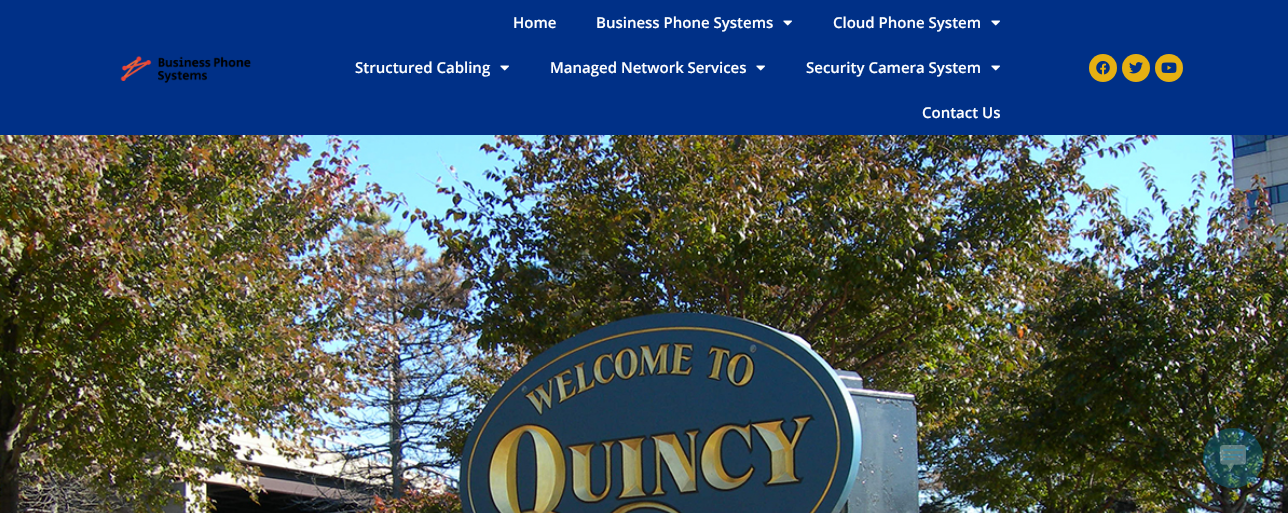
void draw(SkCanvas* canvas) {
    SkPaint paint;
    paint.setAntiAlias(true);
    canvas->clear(0xFF003087);
    canvas->drawImageRect(SkImages::DeferredFromEncodedData(SkData::MakeFromFileName("img1.png")), SkRect::MakeXYWH(120, 56, 131, 27), SkSamplingOptions());
    SkFont font1(fontMgr->matchFamilyStyle("Open Sans", SkFontStyle(600, SkFontStyle::kNormal_Width, SkFontStyle::kUpright_Slant)), 15);
    font1.setSubpixel(true);
    paint.setColor(0xFFFFFFFF);
    canvas->drawString("Home", 513, 28, font1, paint);
    canvas->drawString("Business Phone Systems", 596, 28, font1, paint);
    canvas->drawImageRect(SkImages::DeferredFromEncodedData(SkData::MakeFromFileName("img2.png")), SkRect::MakeXYWH(783, 20, 9, 6), SkSamplingOptions());
    canvas->drawString("Cloud Phone System", 833, 28, font1, paint);
    canvas->drawImageRect(SkImages::DeferredFromEncodedData(SkData::MakeFromFileName("img2.png")), SkRect::MakeXYWH(991, 20, 9, 6), SkSamplingOptions());
    canvas->drawString("Structured Cabling", 355, 73, font1, paint);
    canvas->drawImageRect(SkImages::DeferredFromEncodedData(SkData::MakeFromFileName("img2.png")), SkRect::MakeXYWH(500, 65, 9, 6), SkSamplingOptions());
    canvas->drawString("Managed Network Services", 550, 73, font1, paint);
    canvas->drawImageRect(SkImages::DeferredFromEncodedData(SkData::MakeFromFileName("img2.png")), SkRect::MakeXYWH(756, 65, 9, 6), SkSamplingOptions());
    canvas->drawString("Security Camera System", 806, 73, font1, paint);
    canvas->drawImageRect(SkImages::DeferredFromEncodedData(SkData::MakeFromFileName("img2.png")), SkRect::MakeXYWH(991, 65, 9, 6), SkSamplingOptions());
    canvas->drawString("Contact Us", 922, 118, font1, paint);
    paint.setColor(0xFFE6B012);
    canvas->drawCircle(1103, 68, 14, paint);
    canvas->drawImageRect(SkImages::DeferredFromEncodedData(SkData::MakeFromFileName("img3.png")), SkRect::MakeXYWH(1096, 61, 14, 14), SkSamplingOptions());
    canvas->drawCircle(1136, 68, 14, paint);
    canvas->drawImageRect(SkImages::DeferredFromEncodedData(SkData::MakeFromFileName("img4.png")), SkRect::MakeXYWH(1129, 62, 14, 12), SkSamplingOptions());
    canvas->drawCircle(1169, 68, 14, paint);
    canvas->drawImageRect(SkImages::DeferredFromEncodedData(SkData::MakeFromFileName("img5.png")), SkRect::MakeXYWH(1161, 62, 16, 11), SkSamplingOptions());
    canvas->drawImageRect(SkImages::DeferredFromEncodedData(SkData::MakeFromFileName("img6.png")), SkRect::MakeXYWH(0, 135, 1288, 378), SkSamplingOptions());
    paint.setColor(0x4D0596D4);
    canvas->drawCircle(1233, 458, 30, paint);
    canvas->drawImageRect(SkImages::DeferredFromEncodedData(SkData::MakeFromFileName("img7.png")), SkRect::MakeXYWH(1220, 445, 26, 26), SkSamplingOptions());
}
